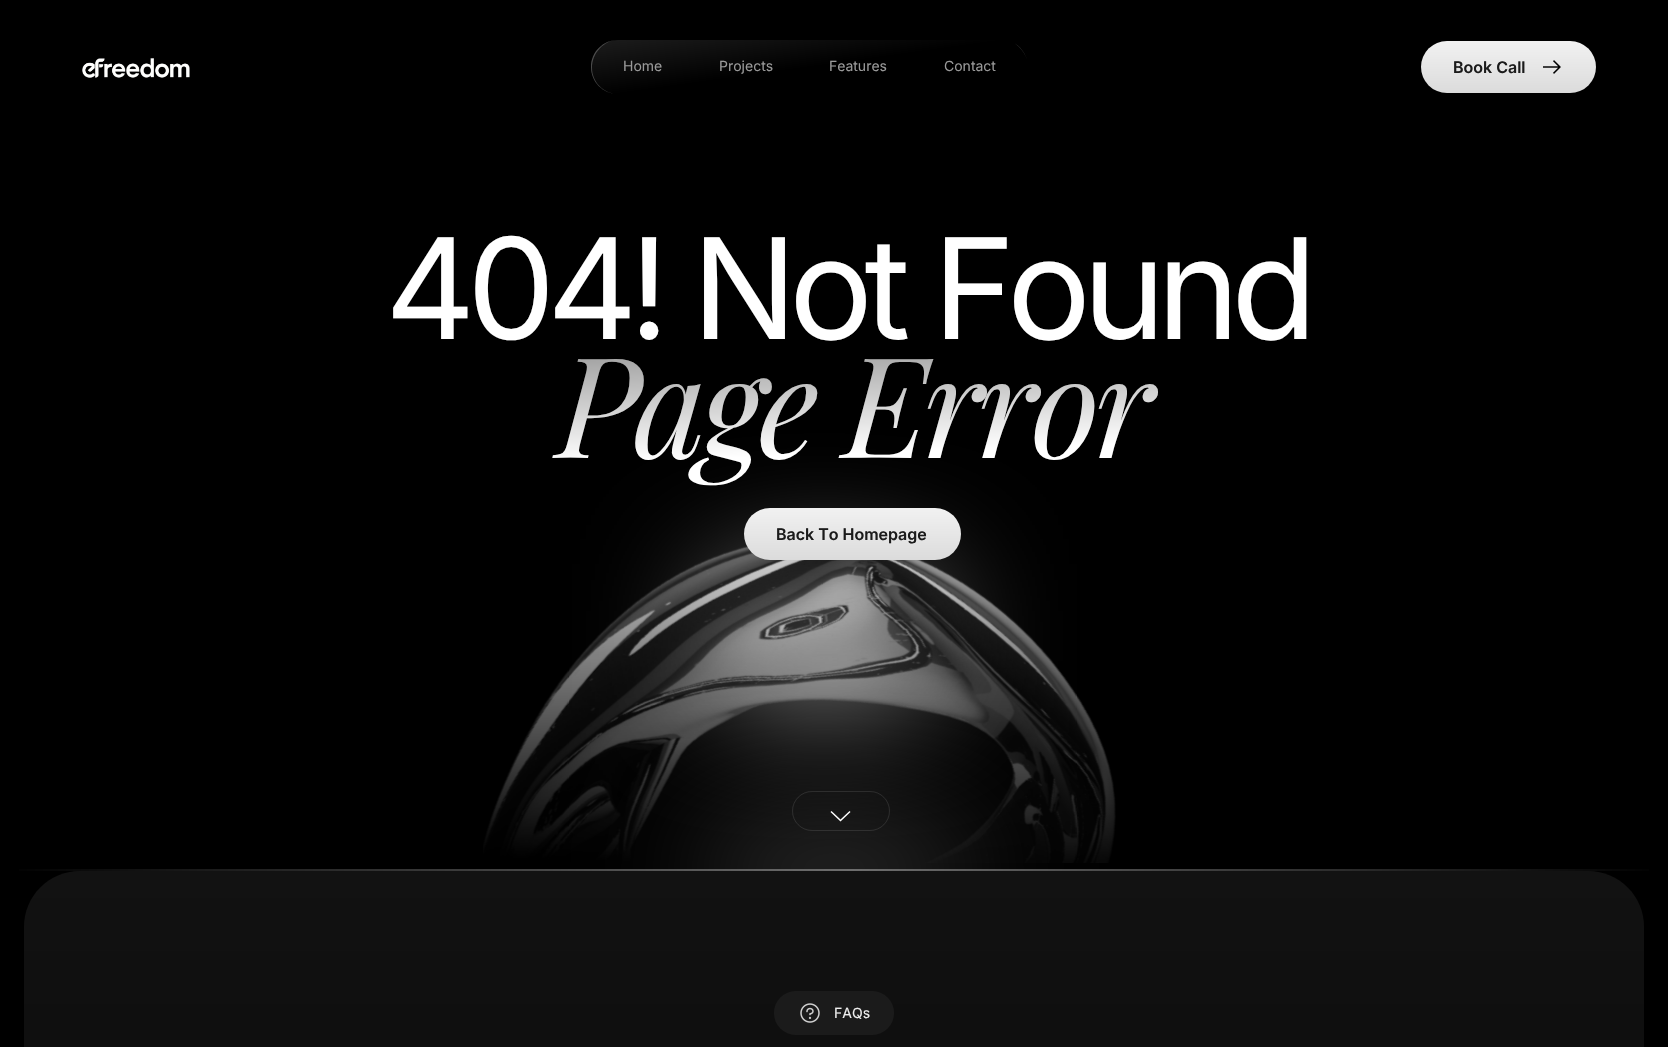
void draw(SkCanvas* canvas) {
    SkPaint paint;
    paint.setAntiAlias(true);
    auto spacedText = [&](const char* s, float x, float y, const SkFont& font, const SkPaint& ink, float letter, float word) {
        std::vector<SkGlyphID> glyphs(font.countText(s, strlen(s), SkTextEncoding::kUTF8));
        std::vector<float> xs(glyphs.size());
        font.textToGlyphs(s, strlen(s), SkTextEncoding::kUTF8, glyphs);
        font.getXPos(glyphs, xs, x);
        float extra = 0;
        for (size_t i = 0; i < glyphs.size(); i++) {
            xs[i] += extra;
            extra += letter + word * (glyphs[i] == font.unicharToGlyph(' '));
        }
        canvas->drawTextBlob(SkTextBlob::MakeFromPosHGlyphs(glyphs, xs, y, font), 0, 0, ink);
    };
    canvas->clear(0xFF000000);
    canvas->drawImageRect(SkImages::DeferredFromEncodedData(SkData::MakeFromFileName("img1.png")), SkRect::MakeXYWH(82, 58, 108, 20), SkSamplingOptions());
    {
        const SkColor colors[] = {0xFF000000, 0xFF292929};
        const float stops[] = {0.4f, 1};
        const SkPoint ends[] = {{817, 122}, {798, -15}};
        paint.setShader(SkGradientShader::MakeLinear(ends, colors, stops, 2, SkTileMode::kClamp));
        paint.setAlpha(255);
    }
    canvas->drawRoundRect(SkRect::MakeXYWH(591, 40, 437, 54), 27, 27, paint);
    paint.setShader(nullptr);
    paint.setColor(0x80868686);
    canvas->drawPath(SkPathBuilder(SkPathFillType::kEvenOdd).moveTo(618, 40).cubicTo(603, 40, 591, 52, 591, 67).cubicTo(591, 82, 603, 94, 618, 94).cubicTo(604, 94, 592, 82, 592, 68).cubicTo(592, 53, 604, 40, 618, 40).close().moveTo(1028, 67).cubicTo(1028, 58, 1023, 48, 1014, 43).cubicTo(1022, 48, 1028, 57, 1028, 67).close().detach(), paint);
    SkFont font1(fontMgr->matchFamilyStyle("Inter", SkFontStyle::Normal()), 14);
    font1.setSubpixel(true);
    paint.setColor(0xFF999999);
    canvas->drawString("Home", 623, 71, font1, paint);
    canvas->drawString("Projects", 719, 71, font1, paint);
    canvas->drawString("Features", 829, 71, font1, paint);
    canvas->drawString("Contact", 944, 71, font1, paint);
    {
        const SkColor colors[] = {0xFFFFFFFF, 0xFFCECECE};
        const float stops[] = {0, 1};
        const SkPoint ends[] = {{1509, 9}, {1509, 124}};
        paint.setShader(SkGradientShader::MakeLinear(ends, colors, stops, 2, SkTileMode::kClamp));
        paint.setAlpha(255);
    }
    canvas->drawRoundRect(SkRect::MakeXYWH(1421, 41, 175, 52), 26, 26, paint);
    SkFont font2(fontMgr->matchFamilyStyle("Inter", SkFontStyle(600, SkFontStyle::kNormal_Width, SkFontStyle::kUpright_Slant)), 16);
    font2.setSubpixel(true);
    paint.setShader(nullptr);
    paint.setColor(0xFF1B1B1B);
    canvas->drawString("Book Call", 1453, 73, font2, paint);
    canvas->drawImageRect(SkImages::DeferredFromEncodedData(SkData::MakeFromFileName("img2.png")), SkRect::MakeXYWH(1543, 60, 18, 14), SkSamplingOptions());
    SkFont font3(fontMgr->matchFamilyStyle("Inter", SkFontStyle::Normal()), 140);
    font3.setSubpixel(true);
    paint.setColor(0xFFFFFFFF);
    spacedText("404! Not Found", 385, 339, font3, paint, -8.4f, 0);
    {
        const SkColor colors[] = {0xFF000000, 0xFF121212};
        const float stops[] = {0, 1};
        const SkPoint ends[] = {{834, 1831}, {834, 871}};
        paint.setShader(SkGradientShader::MakeLinear(ends, colors, stops, 2, SkTileMode::kClamp));
        paint.setAlpha(255);
    }
    canvas->drawPath(SkPathBuilder().moveTo(80, 871).lineTo(1588, 871).cubicTo(1619, 871, 1644, 896, 1644, 927).lineTo(1644, 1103).lineTo(24, 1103).lineTo(24, 927).cubicTo(24, 896, 49, 871, 80, 871).close().detach(), paint);
    paint.setShader(nullptr);
    paint.setColor(0xFFFFFFFF);
    paint.setMaskFilter(SkMaskFilter::MakeBlur(kNormal_SkBlurStyle, 70));
    canvas->drawRect(SkRect::MakeXYWH(727, 600, 195, 72), paint);
    paint.setMaskFilter(nullptr);
    SkFont font4(fontMgr->matchFamilyStyle("Playfair Display", SkFontStyle::Italic()), 140);
    font4.setSubpixel(true);
    {
        const SkColor colors[] = {0xFF999999, 0xFFFFFFFF};
        const float stops[] = {0.19f, 0.76f};
        const SkPoint ends[] = {{849, 297}, {856, 503}};
        paint.setShader(SkGradientShader::MakeLinear(ends, colors, stops, 2, SkTileMode::kClamp));
        paint.setAlpha(255);
    }
    spacedText("Page Error", 557, 458, font4, paint, -5.5f, 0);
    paint.setShader(nullptr);
    paint.setColor(0xFF1B1B1B);
    canvas->drawRoundRect(SkRect::MakeXYWH(774, 991, 120, 44), 22, 22, paint);
    canvas->drawImageRect(SkImages::DeferredFromEncodedData(SkData::MakeFromFileName("img3.png")), SkRect::MakeXYWH(800, 1003, 20, 20), SkSamplingOptions());
    canvas->save();
    canvas->clipRect(SkRect::MakeXYWH(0, 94, 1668, 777));
    paint.setColor(0x4DFFFFFF);
    paint.setMaskFilter(SkMaskFilter::MakeBlur(kNormal_SkBlurStyle, 62));
    canvas->drawRoundRect(SkRect::MakeXYWH(704, 841, 261, 60), 30, 30, paint);
    paint.setMaskFilter(nullptr);
    canvas->restore();
    canvas->drawImageRect(SkImages::DeferredFromEncodedData(SkData::MakeFromFileName("img4.png")), SkRect::MakeXYWH(483, 546, 633, 317), SkSamplingOptions());
    {
        const SkColor colors[] = {0xFFFFFFFF, 0xFFCECECE};
        const float stops[] = {0, 1};
        const SkPoint ends[] = {{853, 476}, {853, 591}};
        paint.setShader(SkGradientShader::MakeLinear(ends, colors, stops, 2, SkTileMode::kClamp));
        paint.setAlpha(255);
    }
    canvas->drawRoundRect(SkRect::MakeXYWH(744, 508, 217, 52), 26, 26, paint);
    paint.setShader(nullptr);
    paint.setColor(0xFF1B1B1B);
    canvas->drawString("Back To Homepage", 776, 540, font2, paint);
    paint.setColor(0xFFFFFFFF);
    canvas->drawPath(SkPathBuilder().moveTo(831.5f, 811).lineTo(830.5f, 812).lineTo(840.5f, 821.5f).lineTo(850.5f, 812).lineTo(849.5f, 811).lineTo(840.5f, 819.5f).close().detach(), paint);
    paint.setStyle(SkPaint::kStroke_Style);
    paint.setStrokeWidth(1);
    paint.setColor(0x1AFFFFFF);
    canvas->drawRoundRect(SkRect::MakeXYWH(792.5f, 791.5f, 97, 39), 19.5f, 19.5f, paint);
    paint.setStyle(SkPaint::kFill_Style);
    {
        const SkColor colors[] = {0xFF000000, 0xFF6E6E6E, 0xFF000000};
        const float stops[] = {0, 0.51f, 1};
        const SkPoint ends[] = {{0, 870}, {1668, 870}};
        paint.setShader(SkGradientShader::MakeLinear(ends, colors, stops, 3, SkTileMode::kClamp));
        paint.setAlpha(255);
    }
    canvas->drawRect(SkRect::MakeXYWH(19, 869, 1630, 2), paint);
    paint.setShader(nullptr);
    paint.setColor(0xFFEEEEEE);
    canvas->drawString("FAQs", 834, 1018, font1, paint);
}
